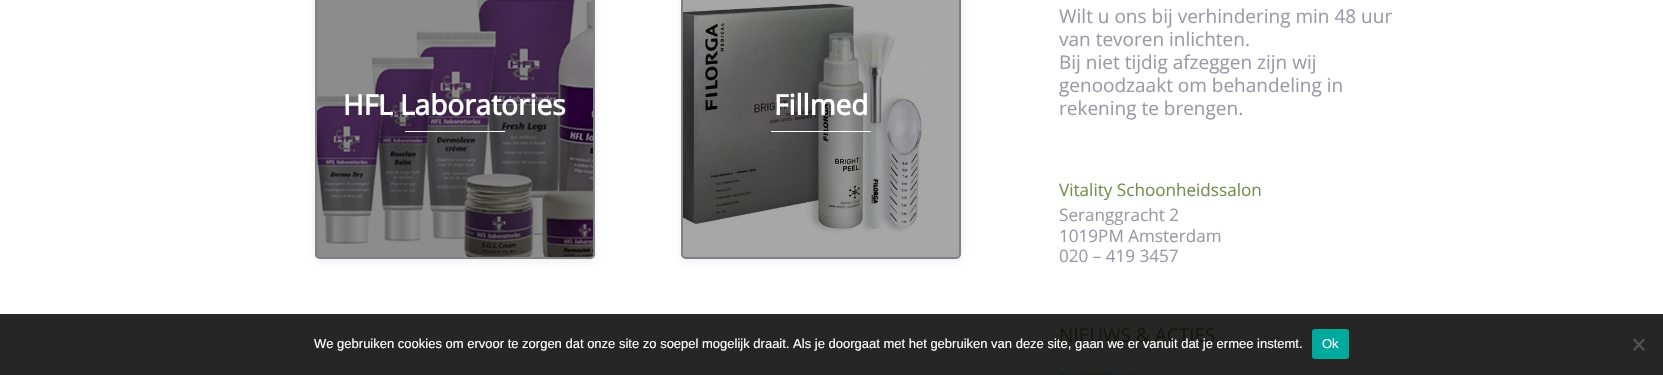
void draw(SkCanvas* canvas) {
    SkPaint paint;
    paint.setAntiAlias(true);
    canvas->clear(0xFFFFFFFF);
    paint.setColor(0xFF262626);
    canvas->drawRect(SkRect::MakeXYWH(0, 314, 1663, 61), paint);
    canvas->drawImageRect(SkImages::DeferredFromEncodedData(SkData::MakeFromFileName("img1.png")), SkRect::MakeXYWH(315, 0, 280, 259), SkSamplingOptions());
    paint.setStyle(SkPaint::kStroke_Style);
    paint.setStrokeWidth(2);
    paint.setColor(0xFF7D8185);
    canvas->drawRoundRect(SkRect::MakeXYWH(316, -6, 278, 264), 4, 4, paint);
    paint.setStyle(SkPaint::kFill_Style);
    paint.setColor(0xFFFFFFFF);
    canvas->drawRect(SkRect::MakeXYWH(405, 131, 100, 1), paint);
    canvas->save();
    canvas->clipPath(SkPathBuilder(SkPathFillType::kEvenOdd).moveTo(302, 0).lineTo(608, 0).lineTo(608, 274).lineTo(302, 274).close().moveTo(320, -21).lineTo(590, -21).cubicTo(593, -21, 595, -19, 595, -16).lineTo(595, 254).cubicTo(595, 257, 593, 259, 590, 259).lineTo(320, 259).cubicTo(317, 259, 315, 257, 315, 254).lineTo(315, -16).cubicTo(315, -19, 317, -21, 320, -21).close().detach(), true);
    paint.setColor(0x8FDEDEDE);
    paint.setMaskFilter(SkMaskFilter::MakeBlur(kNormal_SkBlurStyle, 4));
    canvas->drawRoundRect(SkRect::MakeXYWH(315, -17, 280, 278), 5, 5, paint);
    paint.setMaskFilter(nullptr);
    canvas->restore();
    SkFont font1(fontMgr->matchFamilyStyle("Open Sans", SkFontStyle::Bold()), 28);
    font1.setSubpixel(true);
    paint.setColor(0xFFFFFFFF);
    canvas->drawString("HFL Laboratories", 343, 115, font1, paint);
    canvas->drawImageRect(SkImages::DeferredFromEncodedData(SkData::MakeFromFileName("img2.png")), SkRect::MakeXYWH(681, 0, 280, 259), SkSamplingOptions());
    paint.setStyle(SkPaint::kStroke_Style);
    paint.setColor(0xFF7D8185);
    canvas->drawRoundRect(SkRect::MakeXYWH(682, -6, 278, 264), 4, 4, paint);
    paint.setStyle(SkPaint::kFill_Style);
    paint.setColor(0xFFFFFFFF);
    canvas->drawRect(SkRect::MakeXYWH(771, 131, 100, 1), paint);
    canvas->save();
    canvas->clipPath(SkPathBuilder(SkPathFillType::kEvenOdd).moveTo(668, 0).lineTo(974, 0).lineTo(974, 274).lineTo(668, 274).close().moveTo(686, -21).lineTo(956, -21).cubicTo(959, -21, 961, -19, 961, -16).lineTo(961, 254).cubicTo(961, 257, 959, 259, 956, 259).lineTo(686, 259).cubicTo(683, 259, 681, 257, 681, 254).lineTo(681, -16).cubicTo(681, -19, 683, -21, 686, -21).close().detach(), true);
    paint.setColor(0x8FDEDEDE);
    paint.setMaskFilter(SkMaskFilter::MakeBlur(kNormal_SkBlurStyle, 4));
    canvas->drawRoundRect(SkRect::MakeXYWH(681, -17, 280, 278), 5, 5, paint);
    paint.setMaskFilter(nullptr);
    canvas->restore();
    paint.setColor(0xFFFFFFFF);
    canvas->drawString("Fillmed", 774, 115, font1, paint);
    SkFont font2(fontMgr->matchFamilyStyle("Open Sans", SkFontStyle::Normal()), 19);
    font2.setSubpixel(true);
    paint.setColor(0xFF9999AA);
    canvas->drawString("Wilt u ons bij verhindering min 48 uur", 1059, 23, font2, paint);
    canvas->drawString("van tevoren inlichten.", 1059, 46, font2, paint);
    canvas->drawString("Bij niet tijdig afzeggen zijn wij", 1059, 69, font2, paint);
    canvas->drawString("genoodzaakt om behandeling in", 1059, 92, font2, paint);
    canvas->drawString("rekening te brengen.", 1059, 115, font2, paint);
    SkFont font3(fontMgr->matchFamilyStyle("Open Sans", SkFontStyle::Normal()), 17.1f);
    font3.setSubpixel(true);
    paint.setColor(0xFF748E4E);
    canvas->drawString("Vitality Schoonheidssalon", 1059, 196, font3, paint);
    paint.setColor(0xFF9999AA);
    canvas->drawString("Seranggracht 2", 1059, 221, font3, paint);
    canvas->drawString("1019PM Amsterdam", 1059, 242, font3, paint);
    canvas->drawString("020 – 419 3457", 1059, 262, font3, paint);
    paint.setColor(0xFF11150C);
    canvas->drawString("NIEUWS & ACTIES", 1059, 342, font2, paint);
    canvas->drawImageRect(SkImages::DeferredFromEncodedData(SkData::MakeFromFileName("img3.png")), SkRect::MakeXYWH(1060, 373, 72, 2), SkSamplingOptions());
    SkFont font4(fontMgr->matchFamilyStyle("Liberation Sans", SkFontStyle::Normal()), 13);
    font4.setSubpixel(true);
    paint.setColor(0xFFFFFFFF);
    canvas->drawString("We gebruiken cookies om ervoor te zorgen dat onze site zo soepel mogelijk draait. Als je doorgaat met het gebruiken van deze site, gaan we er vanuit dat je ermee instemt.", 314, 348, font4, paint);
    paint.setColor(0xFF00A99D);
    canvas->drawRoundRect(SkRect::MakeXYWH(1312, 329, 37, 30), 3, 3, paint);
    paint.setColor(0xFFFFFFFF);
    canvas->drawString("Ok", 1322, 348, font4, paint);
    paint.setColor(0xFF535353);
    canvas->drawPath(SkPathBuilder().moveTo(1643.5f, 338.5f).lineTo(1645, 340).lineTo(1634.5f, 351).lineTo(1633, 349.5f).close().detach(), paint);
    canvas->drawPath(SkPathBuilder().moveTo(1633, 340).lineTo(1634.5f, 338.5f).lineTo(1645, 349.5f).lineTo(1643.5f, 351).close().detach(), paint);
}
